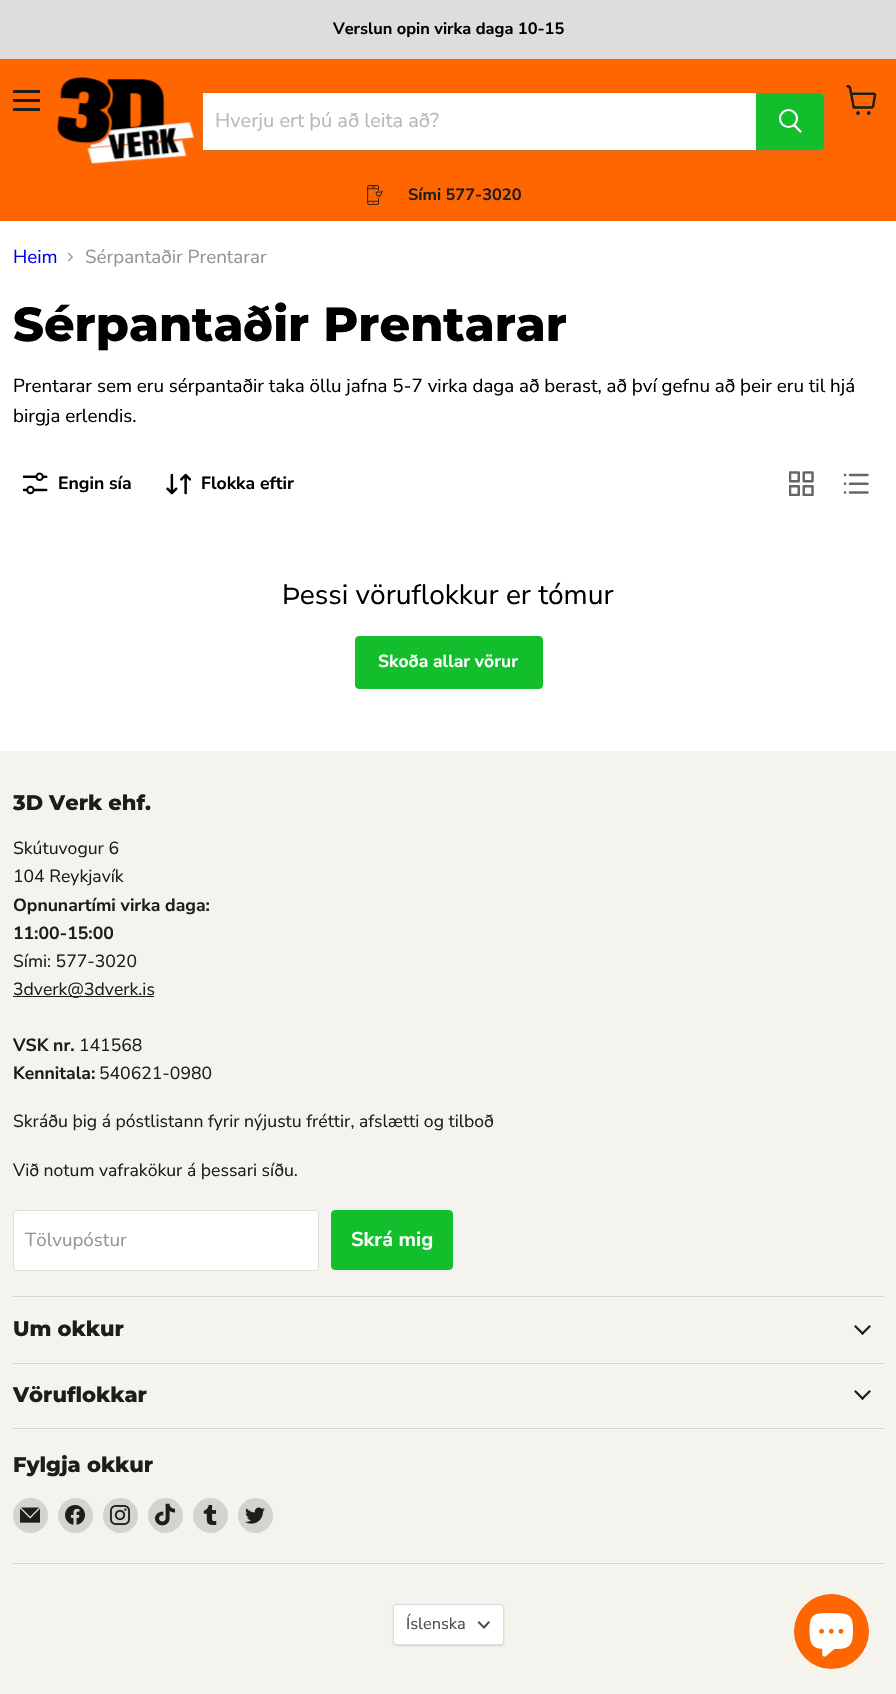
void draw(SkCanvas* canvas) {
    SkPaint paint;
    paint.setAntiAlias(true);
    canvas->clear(0xFFFFFFFF);
    paint.setColor(0xFFDDDDDD);
    canvas->drawRect(SkRect::MakeXYWH(0, 0, 896, 59), paint);
    SkFont font1(fontMgr->matchFamilyStyle("Nunito Sans", SkFontStyle::Bold()), 16.4f);
    font1.setSubpixel(true);
    paint.setColor(0xFF000000);
    canvas->drawString("Verslun opin virka daga 10-15", 333, 34, font1, paint);
    paint.setColor(0xFFFF6600);
    canvas->drawRect(SkRect::MakeXYWH(0, 59, 896, 162), paint);
    paint.setColor(0xFF1D1D1D);
    canvas->drawRect(SkRect::MakeXYWH(13, 90, 27, 3), paint);
    canvas->drawRect(SkRect::MakeXYWH(13, 99, 27, 3), paint);
    canvas->drawRect(SkRect::MakeXYWH(13, 108, 27, 3), paint);
    canvas->drawImageRect(SkImages::DeferredFromEncodedData(SkData::MakeFromFileName("img1.png")), SkRect::MakeXYWH(846, 85, 31, 30), SkSamplingOptions());
    canvas->drawImageRect(SkImages::DeferredFromEncodedData(SkData::MakeFromFileName("img2.png")), SkRect::MakeXYWH(57, 77, 138, 87), SkSamplingOptions());
    paint.setColor(0x1C808080);
    paint.setMaskFilter(SkMaskFilter::MakeBlur(kNormal_SkBlurStyle, 2));
    canvas->drawRoundRect(SkRect::MakeXYWH(201, 94, 624, 60), 5, 5, paint);
    paint.setMaskFilter(nullptr);
    paint.setStyle(SkPaint::kStroke_Style);
    paint.setStrokeWidth(1);
    paint.setColor(0x33808080);
    canvas->drawRoundRect(SkRect::MakeXYWH(201.5f, 91.5f, 623, 59), 4.5f, 4.5f, paint);
    paint.setStyle(SkPaint::kFill_Style);
    paint.setColor(0xFFFFFFFF);
    canvas->drawRect(SkRect::MakeXYWH(203, 93, 553, 57), paint);
    SkFont font2(fontMgr->matchFamilyStyle("Nunito Sans", SkFontStyle::Normal()), 20);
    font2.setSubpixel(true);
    paint.setColor(0xFFB8B8B8);
    canvas->drawString("Hverju ert þú að leita að?", 215, 127, font2, paint);
    paint.setColor(0xFF12BE2B);
    canvas->drawPath(SkPathBuilder().moveTo(756.5f, 93.5f).lineTo(820, 93.5f).cubicTo(822, 93.5f, 823.5f, 95, 823.5f, 97).lineTo(823.5f, 146).cubicTo(823.5f, 148, 822, 149.5f, 820, 149.5f).lineTo(756.5f, 149.5f).close().detach(), paint);
    paint.setStyle(SkPaint::kStroke_Style);
    canvas->drawPath(SkPathBuilder().moveTo(756.5f, 93.5f).lineTo(820, 93.5f).cubicTo(822, 93.5f, 823.5f, 95, 823.5f, 97).lineTo(823.5f, 146).cubicTo(823.5f, 148, 822, 149.5f, 820, 149.5f).lineTo(756.5f, 149.5f).close().detach(), paint);
    paint.setStrokeWidth(2.2f);
    paint.setStrokeCap(SkPaint::kRound_Cap);
    paint.setColor(0xFFFFFFFF);
    canvas->drawPath(SkPathBuilder().moveTo(800.5f, 131.5f).lineTo(794.5f, 125.5f).detach(), paint);
    paint.setStrokeCap(SkPaint::kButt_Cap);
    canvas->drawCircle(788.5f, 118.5f, 8.5f, paint);
    canvas->drawImageRect(SkImages::DeferredFromEncodedData(SkData::MakeFromFileName("img3.png")), SkRect::MakeXYWH(367, 185, 16, 20), SkSamplingOptions());
    paint.setStyle(SkPaint::kFill_Style);
    paint.setColor(0xFF1D1D1D);
    canvas->drawString("Sími 577-3020", 408, 200, font1, paint);
    SkFont font3(fontMgr->matchFamilyStyle("Nunito Sans", SkFontStyle::Normal()), 18.75f);
    font3.setSubpixel(true);
    paint.setColor(0xFF0000EE);
    canvas->drawString("Heim", 13, 263, font3, paint);
    canvas->drawImageRect(SkImages::DeferredFromEncodedData(SkData::MakeFromFileName("img4.png")), SkRect::MakeXYWH(67, 252, 6, 10), SkSamplingOptions());
    paint.setColor(0xFF949494);
    canvas->drawString("Sérpantaðir Prentarar", 85, 263, font3, paint);
    SkFont font4(fontMgr->matchFamilyStyle("Montserrat", SkFontStyle(800, SkFontStyle::kNormal_Width, SkFontStyle::kUpright_Slant)), 47.75f);
    font4.setSubpixel(true);
    paint.setColor(0xFF000000);
    canvas->drawString("Sérpantaðir Prentarar", 13, 341, font4, paint);
    canvas->drawString("Prentarar sem eru sérpantaðir taka öllu jafna 5-7 virka daga að berast, að því gefnu að þeir eru til hjá", 13, 392, font3, paint);
    canvas->drawString("birgja erlendis.", 13, 422, font3, paint);
    canvas->drawImageRect(SkImages::DeferredFromEncodedData(SkData::MakeFromFileName("img5.png")), SkRect::MakeXYWH(23, 472, 25, 23), SkSamplingOptions());
    SkFont font5(fontMgr->matchFamilyStyle("Nunito Sans", SkFontStyle::Bold()), 17.6f);
    font5.setSubpixel(true);
    canvas->drawString("Engin sía", 58, 489, font5, paint);
    canvas->drawImageRect(SkImages::DeferredFromEncodedData(SkData::MakeFromFileName("img6.png")), SkRect::MakeXYWH(166, 473, 25, 22), SkSamplingOptions());
    canvas->drawString("Flokka eftir", 201, 489, font5, paint);
    canvas->drawImageRect(SkImages::DeferredFromEncodedData(SkData::MakeFromFileName("img7.png")), SkRect::MakeXYWH(789, 471, 25, 25), SkSamplingOptions());
    canvas->drawImageRect(SkImages::DeferredFromEncodedData(SkData::MakeFromFileName("img8.png")), SkRect::MakeXYWH(844, 473, 25, 21), SkSamplingOptions());
    SkFont font6(fontMgr->matchFamilyStyle("Nunito Sans", SkFontStyle::Normal()), 28.1f);
    font6.setSubpixel(true);
    canvas->drawString("Þessi vöruflokkur er tómur", 282, 604, font6, paint);
    paint.setColor(0xFF12BE2B);
    canvas->drawRoundRect(SkRect::MakeXYWH(355.5f, 636.5f, 187, 52), 3.5f, 3.5f, paint);
    paint.setStyle(SkPaint::kStroke_Style);
    paint.setStrokeWidth(1);
    canvas->drawRoundRect(SkRect::MakeXYWH(355.5f, 636.5f, 187, 52), 3.5f, 3.5f, paint);
    SkFont font7(fontMgr->matchFamilyStyle("Nunito Sans", SkFontStyle::Bold()), 17.5f);
    font7.setSubpixel(true);
    paint.setStyle(SkPaint::kFill_Style);
    paint.setColor(0xFFFFFFFF);
    canvas->drawString("Skoða allar vörur", 378, 667, font7, paint);
    paint.setColor(0xFFF5F3ED);
    canvas->drawRect(SkRect::MakeXYWH(0, 751, 896, 943), paint);
    paint.setColor(0xFFD5D3CE);
    canvas->drawRect(SkRect::MakeXYWH(13, 1296, 871, 1), paint);
    SkFont font8(fontMgr->matchFamilyStyle("Montserrat", SkFontStyle(800, SkFontStyle::kNormal_Width, SkFontStyle::kUpright_Slant)), 21);
    font8.setSubpixel(true);
    paint.setColor(0xFF1D1D1D);
    canvas->drawString("3D Verk ehf.", 13, 810, font8, paint);
    SkFont font9(fontMgr->matchFamilyStyle("Nunito Sans", SkFontStyle::Normal()), 17.6f);
    font9.setSubpixel(true);
    canvas->drawString("Skútuvogur 6", 13, 854, font9, paint);
    canvas->drawString("104 Reykjavík", 13, 882, font9, paint);
    canvas->drawString("Opnunartími virka daga:", 13, 911, font5, paint);
    canvas->drawString("11:00-15:00", 13, 939, font5, paint);
    canvas->drawString("Sími: 577-3020", 13, 967, font9, paint);
    canvas->drawRect(SkRect::MakeXYWH(13, 996, 141, 1), paint);
    canvas->drawString("3dverk@3dverk.is", 13, 995, font9, paint);
    canvas->drawString("VSK nr.", 13, 1051, font5, paint);
    canvas->drawString("141568", 79, 1051, font9, paint);
    canvas->drawString("Kennitala:", 13, 1079, font5, paint);
    canvas->drawString("540621-0980", 99, 1079, font9, paint);
    canvas->drawString("Skráðu þig á póstlistann fyrir nýjustu fréttir, afslætti og tilboð", 13, 1127, font9, paint);
    canvas->drawString("Við notum vafrakökur á þessari síðu.", 13, 1176, font9, paint);
    paint.setColor(0xFFFFFFFF);
    canvas->drawRoundRect(SkRect::MakeXYWH(13.5f, 1210.5f, 305, 60), 3.5f, 3.5f, paint);
    paint.setStyle(SkPaint::kStroke_Style);
    paint.setColor(0xFFDDDDDD);
    canvas->drawRoundRect(SkRect::MakeXYWH(13.5f, 1210.5f, 305, 60), 3.5f, 3.5f, paint);
    paint.setStyle(SkPaint::kFill_Style);
    paint.setColor(0xFF949494);
    canvas->drawString("Tölvupóstur", 25, 1246, font3, paint);
    paint.setColor(0xFF12BE2B);
    canvas->drawRoundRect(SkRect::MakeXYWH(331.5f, 1210.5f, 121, 59), 3.5f, 3.5f, paint);
    paint.setStyle(SkPaint::kStroke_Style);
    canvas->drawRoundRect(SkRect::MakeXYWH(331.5f, 1210.5f, 121, 59), 3.5f, 3.5f, paint);
    SkFont font10(fontMgr->matchFamilyStyle("Nunito Sans", SkFontStyle::Bold()), 20);
    font10.setSubpixel(true);
    paint.setStyle(SkPaint::kFill_Style);
    paint.setColor(0xFFFFFFFF);
    canvas->drawString("Skrá mig", 351, 1246, font10, paint);
    paint.setColor(0xFFD5D3CE);
    canvas->drawRect(SkRect::MakeXYWH(13, 1363, 871, 1), paint);
    paint.setColor(0xFF1D1D1D);
    canvas->drawString("Um okkur", 13, 1336, font8, paint);
    canvas->drawImageRect(SkImages::DeferredFromEncodedData(SkData::MakeFromFileName("img9.png")), SkRect::MakeXYWH(854, 1325, 17, 10), SkSamplingOptions());
    paint.setColor(0xFFD5D3CE);
    canvas->drawRect(SkRect::MakeXYWH(13, 1428, 871, 1), paint);
    paint.setColor(0xFF1D1D1D);
    canvas->drawString("Vöruflokkar", 13, 1402, font8, paint);
    canvas->drawImageRect(SkImages::DeferredFromEncodedData(SkData::MakeFromFileName("img9.png")), SkRect::MakeXYWH(854, 1390, 17, 10), SkSamplingOptions());
    paint.setColor(0xFFD5D3CE);
    canvas->drawRect(SkRect::MakeXYWH(13, 1563, 871, 1), paint);
    paint.setColor(0xFF1D1D1D);
    canvas->drawString("Fylgja okkur", 13, 1472, font8, paint);
    paint.setColor(0xFFD5D3CE);
    canvas->drawCircle(30.5f, 1515.5f, 17.5f, paint);
    canvas->drawImageRect(SkImages::DeferredFromEncodedData(SkData::MakeFromFileName("img10.png")), SkRect::MakeXYWH(20, 1507, 20, 16), SkSamplingOptions());
    canvas->drawCircle(75.5f, 1515.5f, 17.5f, paint);
    canvas->drawImageRect(SkImages::DeferredFromEncodedData(SkData::MakeFromFileName("img11.png")), SkRect::MakeXYWH(65, 1505, 20, 20), SkSamplingOptions());
    canvas->drawCircle(120.5f, 1515.5f, 17.5f, paint);
    canvas->drawImageRect(SkImages::DeferredFromEncodedData(SkData::MakeFromFileName("img12.png")), SkRect::MakeXYWH(110, 1505, 20, 20), SkSamplingOptions());
    canvas->drawCircle(165.5f, 1515.5f, 17.5f, paint);
    canvas->drawImageRect(SkImages::DeferredFromEncodedData(SkData::MakeFromFileName("img13.png")), SkRect::MakeXYWH(155, 1503, 20, 23), SkSamplingOptions());
    canvas->drawCircle(210.5f, 1515.5f, 17.5f, paint);
    canvas->drawImageRect(SkImages::DeferredFromEncodedData(SkData::MakeFromFileName("img14.png")), SkRect::MakeXYWH(203, 1505, 14, 20), SkSamplingOptions());
    canvas->drawCircle(255.5f, 1515.5f, 17.5f, paint);
    canvas->drawImageRect(SkImages::DeferredFromEncodedData(SkData::MakeFromFileName("img15.png")), SkRect::MakeXYWH(245, 1507, 20, 17), SkSamplingOptions());
    paint.setColor(0x26000000);
    paint.setMaskFilter(SkMaskFilter::MakeBlur(kNormal_SkBlurStyle, 1));
    canvas->drawRoundRect(SkRect::MakeXYWH(393, 1605, 111, 41), 4, 4, paint);
    paint.setMaskFilter(nullptr);
    paint.setColor(0xFFFFFFFF);
    canvas->drawRoundRect(SkRect::MakeXYWH(393.5f, 1604.5f, 110, 40), 3.5f, 3.5f, paint);
    paint.setStyle(SkPaint::kStroke_Style);
    paint.setColor(0xFFDDDDDD);
    canvas->drawRoundRect(SkRect::MakeXYWH(393.5f, 1604.5f, 110, 40), 3.5f, 3.5f, paint);
    SkFont font11(fontMgr->matchFamilyStyle("Nunito Sans", SkFontStyle::Normal()), 16.4f);
    font11.setSubpixel(true);
    paint.setStyle(SkPaint::kFill_Style);
    paint.setColor(0xFF4D4D4D);
    canvas->drawString("Íslenska", 406, 1629, font11, paint);
    paint.setStyle(SkPaint::kStroke_Style);
    paint.setStrokeWidth(2);
    paint.setStrokeCap(SkPaint::kSquare_Cap);
    canvas->drawPath(SkPathBuilder().moveTo(484, 1627.5f).lineTo(488.5f, 1622.5f).moveTo(484, 1627.5f).lineTo(479, 1622.5f).detach(), paint);
    paint.setStyle(SkPaint::kFill_Style);
    paint.setColor(0xFFFF6600);
    canvas->drawCircle(831.5f, 1631.5f, 37.5f, paint);
    canvas->drawImageRect(SkImages::DeferredFromEncodedData(SkData::MakeFromFileName("img16.png")), SkRect::MakeXYWH(809, 1613, 44, 44), SkSamplingOptions());
}
